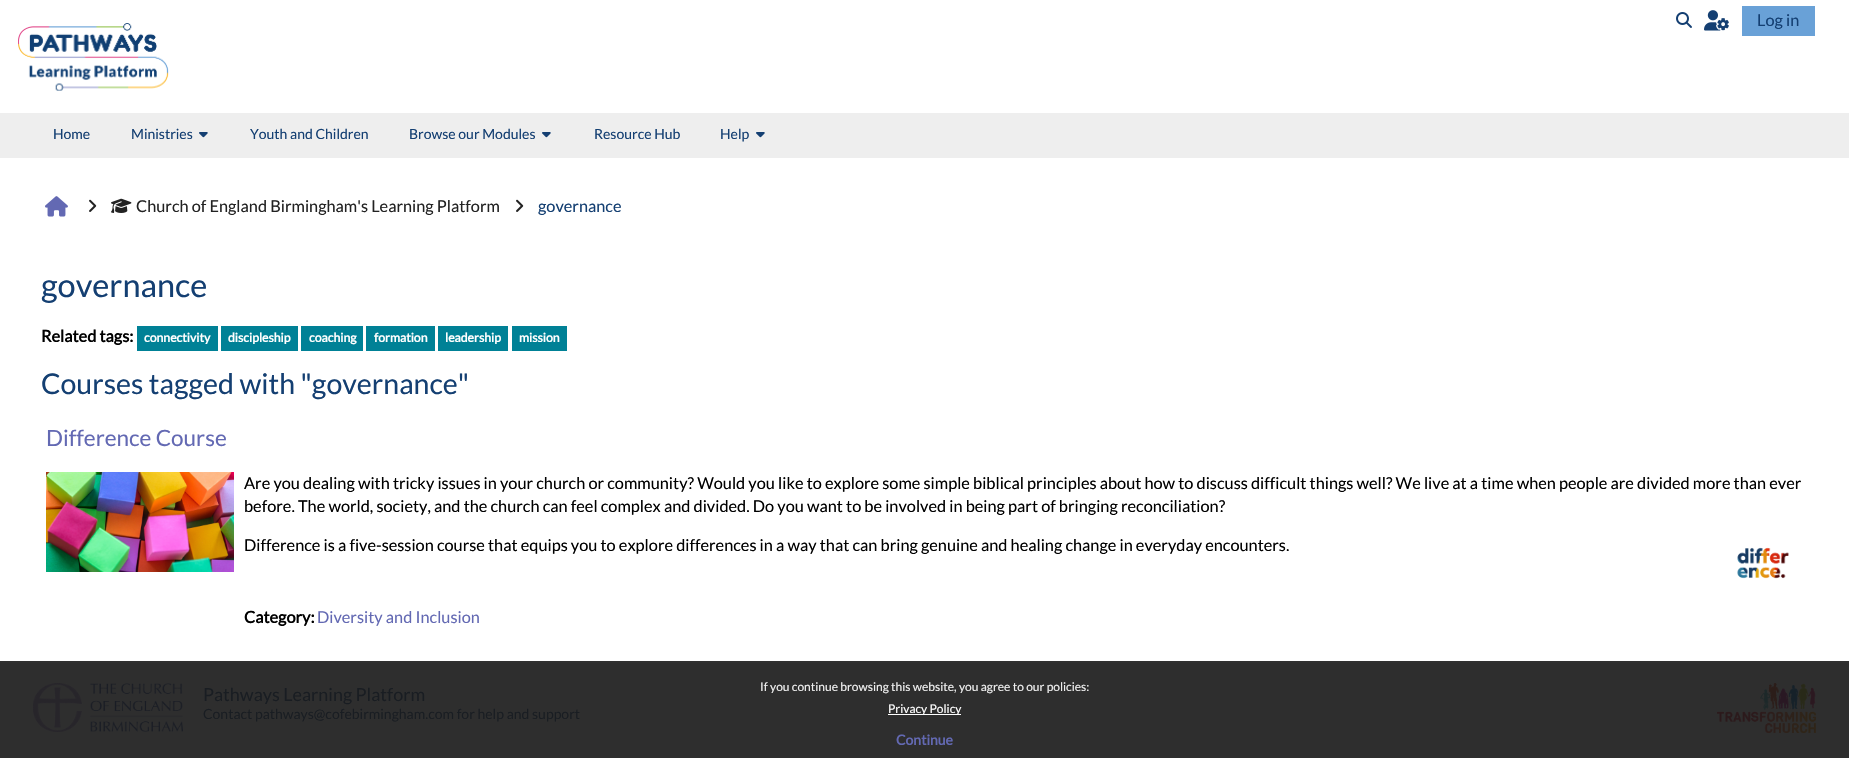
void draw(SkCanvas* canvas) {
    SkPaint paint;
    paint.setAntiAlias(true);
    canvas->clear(0xFFFFFFFF);
    paint.setColor(0xFF303030);
    canvas->drawRect(SkRect::MakeXYWH(0, 661, 1849, 2), paint);
    canvas->drawImageRect(SkImages::DeferredFromEncodedData(SkData::MakeFromFileName("img1.png")), SkRect::MakeXYWH(1676, 12, 16, 16), SkSamplingOptions());
    canvas->drawImageRect(SkImages::DeferredFromEncodedData(SkData::MakeFromFileName("img2.png")), SkRect::MakeXYWH(1704, 10, 25, 21), SkSamplingOptions());
    paint.setColor(0xFF69A1D7);
    canvas->drawRect(SkRect::MakeXYWH(1742, 6, 73, 30), paint);
    SkFont font1(fontMgr->matchFamilyStyle("Lato", SkFontStyle::Normal()), 16.32f);
    font1.setSubpixel(true);
    paint.setColor(0xFF143F72);
    canvas->drawString("Log in", 1757, 26, font1, paint);
    canvas->drawImageRect(SkImages::DeferredFromEncodedData(SkData::MakeFromFileName("img3.png")), SkRect::MakeXYWH(18, 23, 151, 68), SkSamplingOptions());
    paint.setColor(0xFFEEEEEE);
    canvas->drawRect(SkRect::MakeXYWH(0, 113, 1849, 45), paint);
    SkFont font2(fontMgr->matchFamilyStyle("Lato", SkFontStyle::Normal()), 14);
    font2.setSubpixel(true);
    paint.setColor(0xFF143F72);
    canvas->drawString("Home", 53, 139, font2, paint);
    canvas->drawString("Ministries", 131, 139, font2, paint);
    canvas->drawImageRect(SkImages::DeferredFromEncodedData(SkData::MakeFromFileName("img4.png")), SkRect::MakeXYWH(199, 132, 9, 6), SkSamplingOptions());
    canvas->drawString("Youth and Children", 250, 139, font2, paint);
    canvas->drawString("Browse our Modules", 409, 139, font2, paint);
    canvas->drawImageRect(SkImages::DeferredFromEncodedData(SkData::MakeFromFileName("img4.png")), SkRect::MakeXYWH(542, 132, 9, 6), SkSamplingOptions());
    canvas->drawString("Resource Hub", 594, 139, font2, paint);
    canvas->drawString("Help", 720, 139, font2, paint);
    canvas->drawImageRect(SkImages::DeferredFromEncodedData(SkData::MakeFromFileName("img4.png")), SkRect::MakeXYWH(756, 132, 9, 6), SkSamplingOptions());
    canvas->drawImageRect(SkImages::DeferredFromEncodedData(SkData::MakeFromFileName("img5.png")), SkRect::MakeXYWH(45, 196, 23, 21), SkSamplingOptions());
    canvas->drawImageRect(SkImages::DeferredFromEncodedData(SkData::MakeFromFileName("img6.png")), SkRect::MakeXYWH(89, 199, 8, 13), SkSamplingOptions());
    canvas->drawImageRect(SkImages::DeferredFromEncodedData(SkData::MakeFromFileName("img7.png")), SkRect::MakeXYWH(111, 198, 21, 15), SkSamplingOptions());
    paint.setColor(0xFF222222);
    canvas->drawString("Church of England Birmingham's Learning Platform", 136, 212, font1, paint);
    canvas->drawImageRect(SkImages::DeferredFromEncodedData(SkData::MakeFromFileName("img6.png")), SkRect::MakeXYWH(516, 199, 8, 13), SkSamplingOptions());
    paint.setColor(0xFF143F72);
    canvas->drawString("governance", 538, 212, font1, paint);
    SkFont font3(fontMgr->matchFamilyStyle("Lato", SkFontStyle::Normal()), 32.5f);
    font3.setSubpixel(true);
    canvas->drawString("governance", 41, 297, font3, paint);
    SkFont font4(fontMgr->matchFamilyStyle("Lato", SkFontStyle::Bold()), 16.32f);
    font4.setSubpixel(true);
    paint.setColor(0xFF000000);
    canvas->drawString("Related tags:", 41, 342, font4, paint);
    paint.setColor(0xFF008196);
    canvas->drawRect(SkRect::MakeXYWH(137, 326, 81, 25), paint);
    SkFont font5(fontMgr->matchFamilyStyle("Lato", SkFontStyle::Bold()), 12.25f);
    font5.setSubpixel(true);
    paint.setColor(0xFFFFFFFF);
    canvas->drawString("connectivity", 144, 342, font5, paint);
    paint.setColor(0xFF008196);
    canvas->drawRect(SkRect::MakeXYWH(221, 326, 77, 25), paint);
    paint.setColor(0xFFFFFFFF);
    canvas->drawString("discipleship", 228, 342, font5, paint);
    paint.setColor(0xFF008196);
    canvas->drawRect(SkRect::MakeXYWH(301, 326, 62, 25), paint);
    paint.setColor(0xFFFFFFFF);
    canvas->drawString("coaching", 309, 342, font5, paint);
    paint.setColor(0xFF008196);
    canvas->drawRect(SkRect::MakeXYWH(366, 326, 69, 25), paint);
    paint.setColor(0xFFFFFFFF);
    canvas->drawString("formation", 374, 342, font5, paint);
    paint.setColor(0xFF008196);
    canvas->drawRect(SkRect::MakeXYWH(438, 326, 70, 25), paint);
    paint.setColor(0xFFFFFFFF);
    canvas->drawString("leadership", 445, 342, font5, paint);
    paint.setColor(0xFF008196);
    canvas->drawRect(SkRect::MakeXYWH(512, 326, 55, 25), paint);
    paint.setColor(0xFFFFFFFF);
    canvas->drawString("mission", 519, 342, font5, paint);
    SkFont font6(fontMgr->matchFamilyStyle("Lato", SkFontStyle::Normal()), 28.5f);
    font6.setSubpixel(true);
    paint.setColor(0xFF143F72);
    canvas->drawString("Courses tagged with \"governance\"", 41, 394, font6, paint);
    SkFont font7(fontMgr->matchFamilyStyle("Lato", SkFontStyle::Normal()), 22.5f);
    font7.setSubpixel(true);
    paint.setColor(0xFF6369B3);
    canvas->drawString("Difference Course", 46, 446, font7, paint);
    canvas->drawImageRect(SkImages::DeferredFromEncodedData(SkData::MakeFromFileName("img8.png")), SkRect::MakeXYWH(46, 472, 188, 100), SkSamplingOptions());
    paint.setColor(0xFF000000);
    canvas->drawString("Are you dealing with tricky issues in your church or community? Would you like to explore some simple biblical principles about how to discuss difficult things well? We live at a time when people are divided more than ever", 244, 489, font1, paint);
    canvas->drawString("before. The world, society, and the church can feel complex and divided. Do you want to be involved in being part of bringing reconciliation?", 244, 512, font1, paint);
    canvas->drawString("Difference is a five-session course that equips you to explore differences in a way that can bring genuine and healing change in everyday encounters.", 244, 551, font1, paint);
    canvas->drawImageRect(SkImages::DeferredFromEncodedData(SkData::MakeFromFileName("img9.png")), SkRect::MakeXYWH(1737, 547, 52, 32), SkSamplingOptions());
    canvas->drawString("Category:", 244, 623, font4, paint);
    paint.setColor(0xFF6369B3);
    canvas->drawString("Diversity and Inclusion", 317, 623, font1, paint);
    paint.setColor(0xFF2E2E2E);
    canvas->drawRect(SkRect::MakeXYWH(0, 663, 1849, 95), paint);
    canvas->drawImageRect(SkImages::DeferredFromEncodedData(SkData::MakeFromFileName("img10.png")), SkRect::MakeXYWH(33, 683, 150, 49), SkSamplingOptions());
    SkFont font8(fontMgr->matchFamilyStyle("Lato", SkFontStyle::Normal()), 18);
    font8.setSubpixel(true);
    paint.setColor(0xFF191D22);
    canvas->drawString("Pathways Learning Platform", 203, 701, font8, paint);
    canvas->drawImageRect(SkImages::DeferredFromEncodedData(SkData::MakeFromFileName("img11.png")), SkRect::MakeXYWH(1717, 683, 99, 50), SkSamplingOptions());
    canvas->drawString("Contact pathways@cofebirmingham.com for help and support", 203, 719, font2, paint);
    SkFont font9(fontMgr->matchFamilyStyle("Lato", SkFontStyle::Normal()), 12);
    font9.setSubpixel(true);
    paint.setColor(0xFFEFEFEF);
    canvas->drawString("If you continue browsing this website, you agree to our policies:", 760, 691, font9, paint);
    paint.setColor(0xFFFFFFFF);
    canvas->drawRect(SkRect::MakeXYWH(888, 714, 73, 1), paint);
    canvas->drawString("Privacy Policy", 888, 713, font9, paint);
    SkFont font10(fontMgr->matchFamilyStyle("Lato", SkFontStyle::Bold()), 14);
    font10.setSubpixel(true);
    paint.setColor(0xFF6369B3);
    canvas->drawString("Continue", 896, 745, font10, paint);
}
